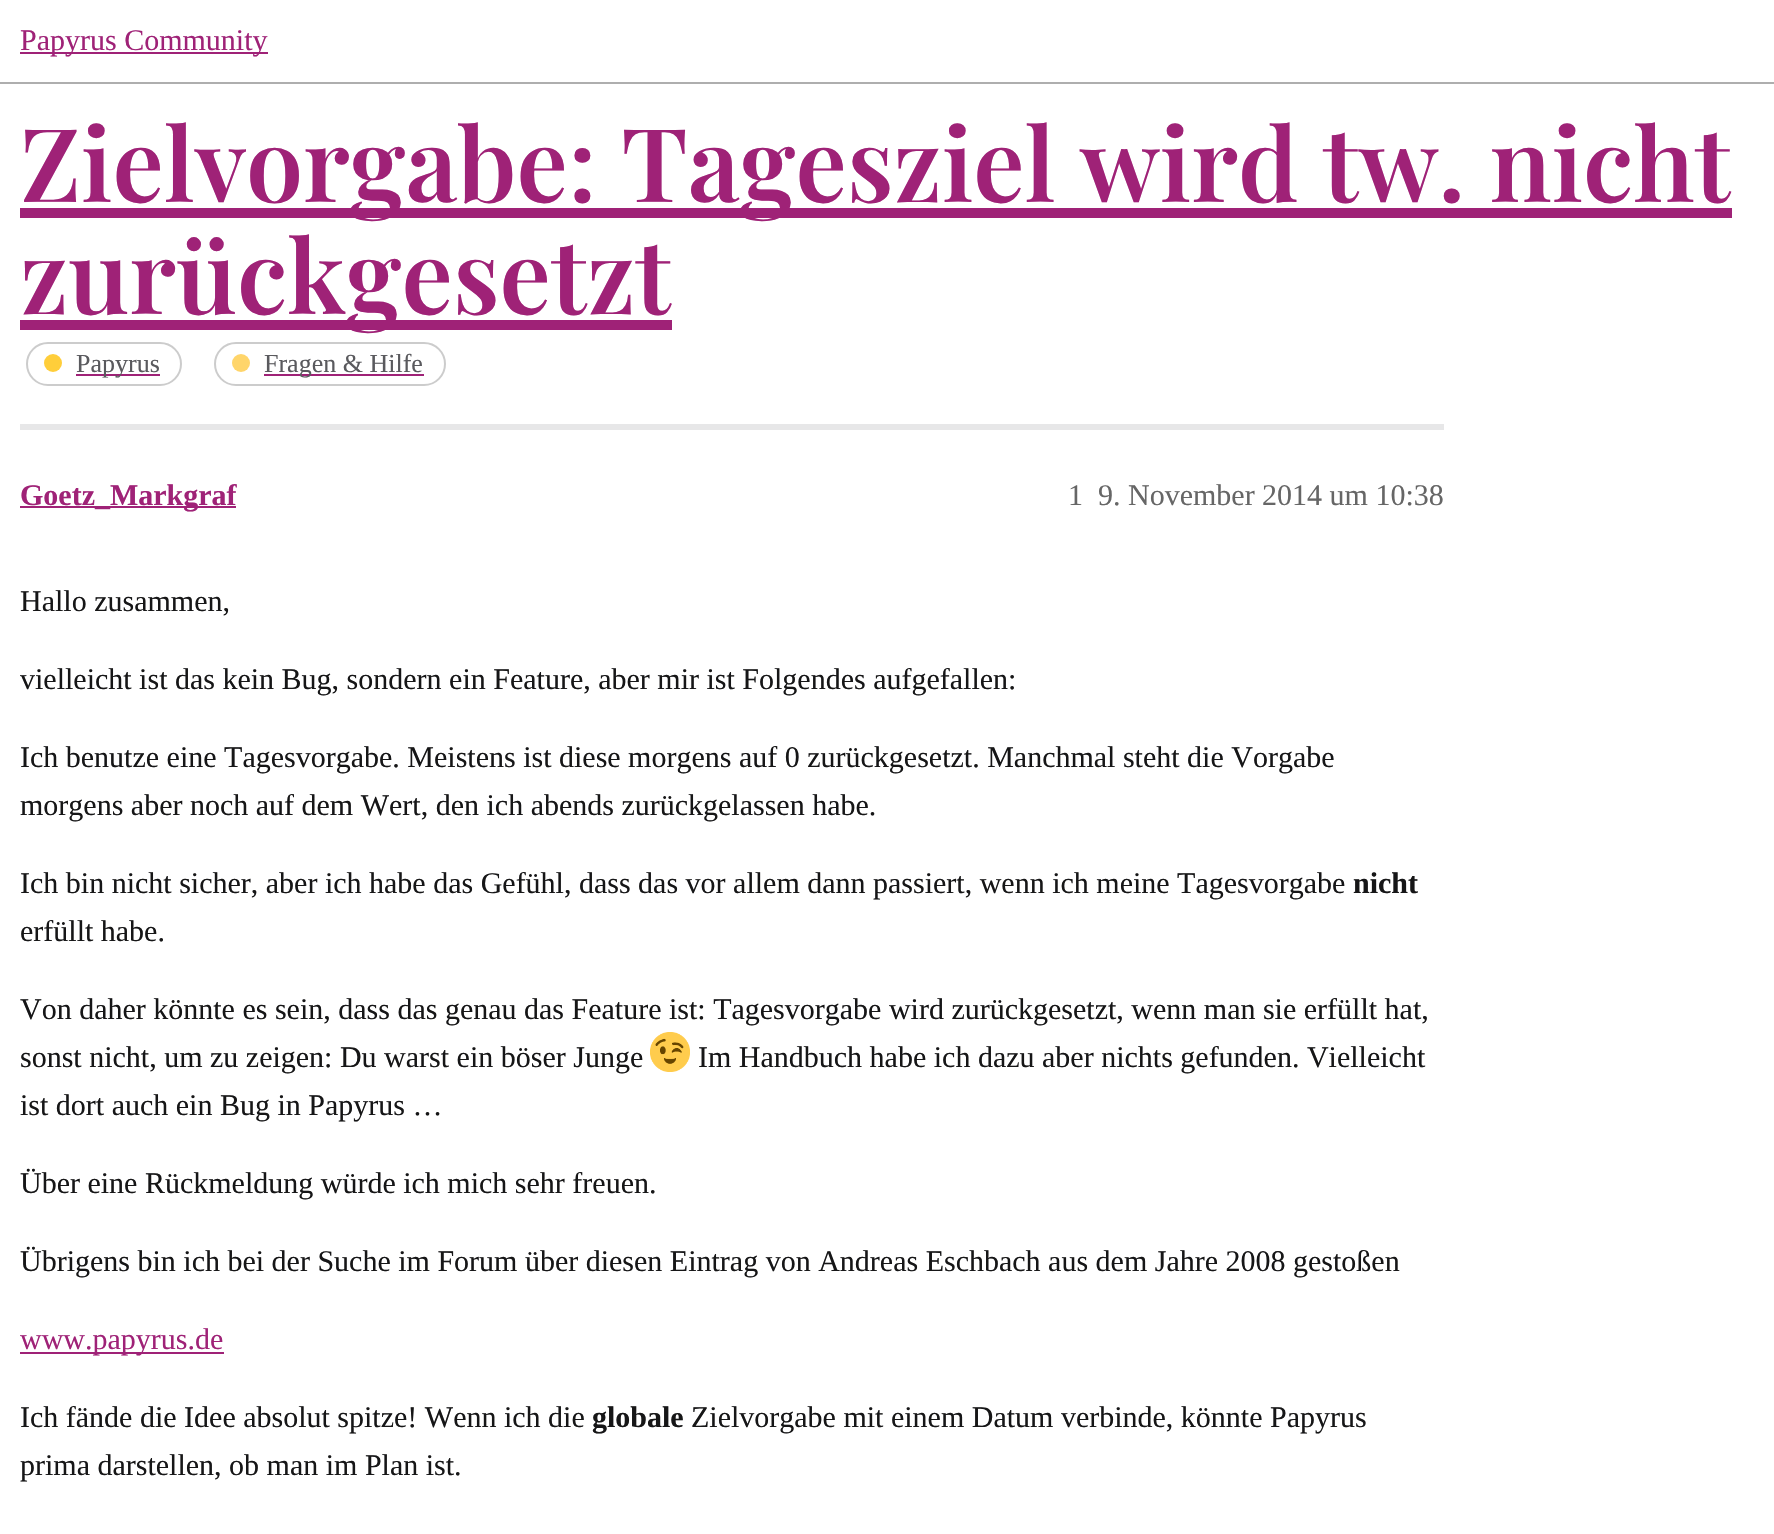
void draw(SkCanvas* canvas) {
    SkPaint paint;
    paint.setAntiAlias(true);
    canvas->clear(0xFFFFFFFF);
    paint.setColor(0xFFAEAEAE);
    canvas->drawRect(SkRect::MakeXYWH(0, 82, 1774, 2), paint);
    paint.setColor(0xFF9F2277);
    canvas->drawRect(SkRect::MakeXYWH(20, 52, 248, 2), paint);
    SkFont font1(fontMgr->matchFamilyStyle("Liberation Serif", SkFontStyle::Normal()), 30);
    font1.setSubpixel(true);
    canvas->drawString("Papyrus Community", 20, 50, font1, paint);
    canvas->drawRect(SkRect::MakeXYWH(20, 208, 1712, 10), paint);
    SkFont font2(fontMgr->matchFamilyStyle("Playfair Display", SkFontStyle(600, SkFontStyle::kNormal_Width, SkFontStyle::kUpright_Slant)), 102);
    font2.setSubpixel(true);
    canvas->drawString("Zielvorgabe: Tagesziel wird tw. nicht", 20, 202, font2, paint);
    canvas->drawRect(SkRect::MakeXYWH(20, 320, 652, 10), paint);
    canvas->drawString("zurückgesetzt", 20, 314, font2, paint);
    paint.setStyle(SkPaint::kStroke_Style);
    paint.setStrokeWidth(2);
    paint.setColor(0xFFCCCCCC);
    canvas->drawRoundRect(SkRect::MakeXYWH(27, 343, 154, 42), 21, 21, paint);
    paint.setStyle(SkPaint::kFill_Style);
    paint.setColor(0xFFFFCE3A);
    canvas->drawCircle(53, 363, 9, paint);
    paint.setColor(0xFF9F2277);
    canvas->drawRect(SkRect::MakeXYWH(76, 374, 84, 2), paint);
    SkFont font3(fontMgr->matchFamilyStyle("Liberation Serif", SkFontStyle::Normal()), 26);
    font3.setSubpixel(true);
    paint.setColor(0xFF5A5A5E);
    canvas->drawString("Papyrus", 76, 372, font3, paint);
    paint.setStyle(SkPaint::kStroke_Style);
    paint.setColor(0xFFCCCCCC);
    canvas->drawRoundRect(SkRect::MakeXYWH(215, 343, 230, 42), 21, 21, paint);
    paint.setStyle(SkPaint::kFill_Style);
    paint.setColor(0xFFFFD56A);
    canvas->drawCircle(241, 363, 9, paint);
    paint.setColor(0xFF9F2277);
    canvas->drawRect(SkRect::MakeXYWH(264, 374, 160, 2), paint);
    paint.setColor(0xFF5A5A5E);
    canvas->drawString("Fragen & Hilfe", 264, 372, font3, paint);
    paint.setColor(0xFFE7E7E8);
    canvas->drawRect(SkRect::MakeXYWH(20, 424, 1424, 6), paint);
    paint.setColor(0xFF9F2277);
    canvas->drawRect(SkRect::MakeXYWH(20, 506, 216, 2), paint);
    SkFont font4(fontMgr->matchFamilyStyle("Liberation Serif", SkFontStyle::Bold()), 30);
    font4.setSubpixel(true);
    canvas->drawString("Goetz_Markgraf", 20, 505, font4, paint);
    paint.setColor(0xFF666666);
    canvas->drawString("1", 1068, 505, font1, paint);
    canvas->drawString("9. November 2014 um 10:38", 1098, 505, font1, paint);
    paint.setColor(0xFF161617);
    canvas->drawString("Hallo zusammen,", 20, 611, font1, paint);
    canvas->drawString("vielleicht ist das kein Bug, sondern ein Feature, aber mir ist Folgendes aufgefallen:", 20, 689, font1, paint);
    canvas->drawString("Ich benutze eine Tagesvorgabe. Meistens ist diese morgens auf 0 zurückgesetzt. Manchmal steht die Vorgabe", 20, 767, font1, paint);
    canvas->drawString("morgens aber noch auf dem Wert, den ich abends zurückgelassen habe.", 20, 815, font1, paint);
    canvas->drawString("Ich bin nicht sicher, aber ich habe das Gefühl, dass das vor allem dann passiert, wenn ich meine Tagesvorgabe", 20, 893, font1, paint);
    canvas->drawString("nicht", 1353, 893, font4, paint);
    canvas->drawString("erfüllt habe.", 20, 941, font1, paint);
    canvas->drawString("Von daher könnte es sein, dass das genau das Feature ist: Tagesvorgabe wird zurückgesetzt, wenn man sie erfüllt hat,", 20, 1019, font1, paint);
    canvas->drawString("sonst nicht, um zu zeigen: Du warst ein böser Junge", 20, 1067, font1, paint);
    canvas->drawImageRect(SkImages::DeferredFromEncodedData(SkData::MakeFromFileName("img1.png")), SkRect::MakeXYWH(650, 1032, 40, 40), SkSamplingOptions());
    canvas->drawString("Im Handbuch habe ich dazu aber nichts gefunden. Vielleicht", 698, 1067, font1, paint);
    canvas->drawString("ist dort auch ein Bug in Papyrus …", 20, 1115, font1, paint);
    canvas->drawString("Über eine Rückmeldung würde ich mich sehr freuen.", 20, 1193, font1, paint);
    canvas->drawString("Übrigens bin ich bei der Suche im Forum über diesen Eintrag von Andreas Eschbach aus dem Jahre 2008 gestoßen", 20, 1271, font1, paint);
    paint.setColor(0xFF9F2277);
    canvas->drawRect(SkRect::MakeXYWH(20, 1352, 204, 2), paint);
    canvas->drawString("www.papyrus.de", 20, 1349, font1, paint);
    paint.setColor(0xFF161617);
    canvas->drawString("Ich fände die Idee absolut spitze! Wenn ich die", 20, 1427, font1, paint);
    canvas->drawString("globale", 592, 1427, font4, paint);
    canvas->drawString("Zielvorgabe mit einem Datum verbinde, könnte Papyrus", 691, 1427, font1, paint);
    canvas->drawString("prima darstellen, ob man im Plan ist.", 20, 1475, font1, paint);
}
